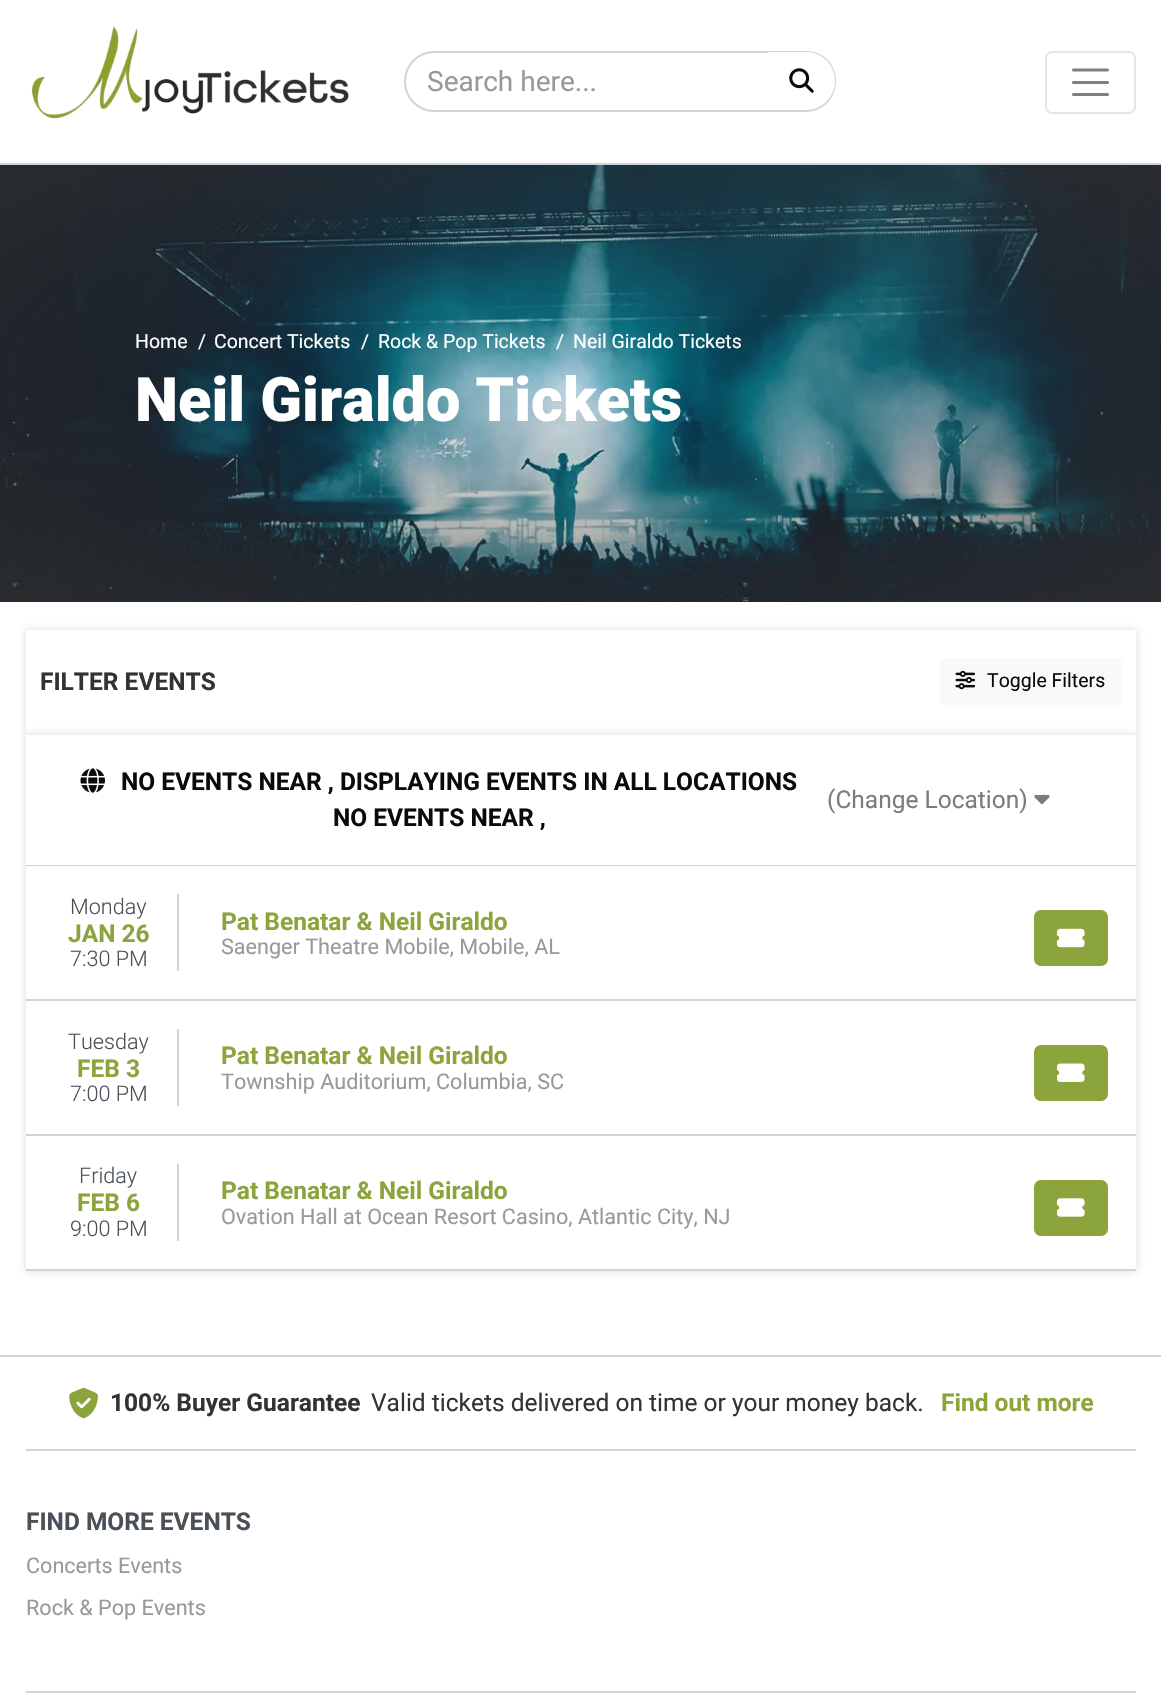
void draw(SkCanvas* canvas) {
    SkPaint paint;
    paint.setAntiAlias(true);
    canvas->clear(0xFFFFFFFF);
    paint.setColor(0xFFC9D6DF);
    canvas->drawRect(SkRect::MakeXYWH(0, 163, 1161, 2), paint);
    canvas->drawImageRect(SkImages::DeferredFromEncodedData(SkData::MakeFromFileName("img1.png")), SkRect::MakeXYWH(31, 26, 318, 93), SkSamplingOptions());
    paint.setStyle(SkPaint::kStroke_Style);
    paint.setStrokeWidth(2);
    canvas->drawPath(SkPathBuilder().moveTo(434.5f, 52).lineTo(769, 52).lineTo(769, 111).lineTo(434.5f, 111).cubicTo(418, 111, 405, 98, 405, 81.5f).cubicTo(405, 65, 418, 52, 434.5f, 52).close().detach(), paint);
    SkFont font1(fontMgr->matchFamilyStyle("Roboto", SkFontStyle::Normal()), 28);
    font1.setSubpixel(true);
    paint.setStyle(SkPaint::kFill_Style);
    paint.setColor(0xFF999999);
    canvas->drawString("Search here...", 427, 91, font1, paint);
    paint.setColor(0xFFFFFFFF);
    canvas->drawPath(SkPathBuilder().moveTo(768, 51).lineTo(806.5f, 51).cubicTo(823.5f, 51, 837, 64.5f, 837, 81.5f).cubicTo(837, 98.5f, 823.5f, 112, 806.5f, 112).lineTo(768, 112).close().detach(), paint);
    paint.setColor(0xFFC9D6DF);
    canvas->drawPath(SkPathBuilder(SkPathFillType::kEvenOdd).moveTo(768, 51).lineTo(806, 51).cubicTo(823, 51, 836, 64, 836, 81).cubicTo(836, 98, 823, 112, 806, 112).lineTo(768, 112).close().moveTo(768, 52).lineTo(806, 52).cubicTo(822, 52, 835, 65, 835, 81).cubicTo(835, 97, 822, 110, 806, 110).lineTo(768, 110).close().detach(), paint);
    canvas->drawImageRect(SkImages::DeferredFromEncodedData(SkData::MakeFromFileName("img2.png")), SkRect::MakeXYWH(789, 68, 25, 25), SkSamplingOptions());
    paint.setStyle(SkPaint::kStroke_Style);
    paint.setColor(0xFFE6E6E6);
    canvas->drawRoundRect(SkRect::MakeXYWH(1046, 52, 89, 61), 6, 6, paint);
    paint.setStrokeWidth(3.1f);
    paint.setStrokeCap(SkPaint::kRound_Cap);
    paint.setColor(0xFF808080);
    canvas->drawPath(SkPathBuilder().moveTo(1073.5f, 70).lineTo(1107.5f, 70).moveTo(1073.5f, 82.5f).lineTo(1107.5f, 82.5f).moveTo(1073.5f, 94.5f).lineTo(1107.5f, 94.5f).detach(), paint);
    canvas->drawImageRect(SkImages::DeferredFromEncodedData(SkData::MakeFromFileName("img3.png")), SkRect::MakeXYWH(0, 165, 1161, 437), SkSamplingOptions());
    SkFont font2(fontMgr->matchFamilyStyle("Roboto", SkFontStyle::Normal()), 19.5f);
    font2.setSubpixel(true);
    paint.setStyle(SkPaint::kFill_Style);
    paint.setColor(0xFFFFFFFF);
    canvas->drawString("Home", 135, 348, font2, paint);
    canvas->drawString("/", 198, 348, font2, paint);
    canvas->drawString("Concert Tickets", 214, 348, font2, paint);
    canvas->drawString("/", 361, 348, font2, paint);
    canvas->drawString("Rock & Pop Tickets", 378, 348, font2, paint);
    canvas->drawString("/", 556, 348, font2, paint);
    canvas->drawString("Neil Giraldo Tickets", 573, 348, font2, paint);
    SkFont font3(fontMgr->matchFamilyStyle("Roboto", SkFontStyle(900, SkFontStyle::kNormal_Width, SkFontStyle::kUpright_Slant)), 61.25f);
    font3.setSubpixel(true);
    canvas->drawString("Neil Giraldo Tickets", 135, 421, font3, paint);
    paint.setColor(0x59999999);
    paint.setMaskFilter(SkMaskFilter::MakeBlur(kNormal_SkBlurStyle, 4.5f));
    canvas->drawRect(SkRect::MakeXYWH(26, 630, 1110, 105), paint);
    paint.setMaskFilter(nullptr);
    paint.setColor(0xFFFFFFFF);
    canvas->drawRect(SkRect::MakeXYWH(26, 630, 1110, 103), paint);
    SkFont font4(fontMgr->matchFamilyStyle("Roboto", SkFontStyle::Bold()), 24.5f);
    font4.setSubpixel(true);
    paint.setColor(0xFF333333);
    canvas->drawString("FILTER EVENTS", 40, 690, font4, paint);
    paint.setColor(0xFFF9F9F9);
    canvas->drawRoundRect(SkRect::MakeXYWH(940, 658, 182, 47), 5, 5, paint);
    canvas->drawImageRect(SkImages::DeferredFromEncodedData(SkData::MakeFromFileName("img4.png")), SkRect::MakeXYWH(955, 670, 21, 20), SkSamplingOptions());
    paint.setColor(0xFF0C090D);
    canvas->drawString("Toggle Filters", 987, 687, font2, paint);
    paint.setColor(0x59999999);
    paint.setMaskFilter(SkMaskFilter::MakeBlur(kNormal_SkBlurStyle, 4.5f));
    canvas->drawRect(SkRect::MakeXYWH(26, 735, 1110, 536), paint);
    paint.setMaskFilter(nullptr);
    paint.setColor(0xFFEFEFEF);
    canvas->drawRect(SkRect::MakeXYWH(26, 733, 1110, 2), paint);
    paint.setColor(0xFFFFFFFF);
    canvas->drawRect(SkRect::MakeXYWH(26, 735, 1110, 534), paint);
    paint.setColor(0xFFC9D6DF);
    canvas->drawRect(SkRect::MakeXYWH(26, 865, 1110, 1), paint);
    canvas->drawImageRect(SkImages::DeferredFromEncodedData(SkData::MakeFromFileName("img5.png")), SkRect::MakeXYWH(80, 768, 25, 25), SkSamplingOptions());
    paint.setColor(0xFF0C090D);
    canvas->drawString("NO EVENTS NEAR , DISPLAYING EVENTS IN ALL LOCATIONS", 121, 790, font4, paint);
    canvas->drawString("NO EVENTS NEAR ,", 333, 826, font4, paint);
    SkFont font5(fontMgr->matchFamilyStyle("Roboto", SkFontStyle::Normal()), 24.5f);
    font5.setSubpixel(true);
    paint.setColor(0xFF7C7C7C);
    canvas->drawString("(Change Location)", 827, 808, font5, paint);
    canvas->drawImageRect(SkImages::DeferredFromEncodedData(SkData::MakeFromFileName("img6.png")), SkRect::MakeXYWH(1034, 794, 16, 11), SkSamplingOptions());
    paint.setColor(0xFFC9D6DF);
    canvas->drawRect(SkRect::MakeXYWH(26, 999, 1110, 2), paint);
    canvas->drawRect(SkRect::MakeXYWH(177, 894, 2, 77), paint);
    SkFont font6(fontMgr->matchFamilyStyle("Roboto", SkFontStyle(300, SkFontStyle::kNormal_Width, SkFontStyle::kUpright_Slant)), 21.6f);
    font6.setSubpixel(true);
    paint.setColor(0xFF495057);
    canvas->drawString("Monday", 70, 914, font6, paint);
    paint.setColor(0xFF8CA43C);
    canvas->drawString("JAN 26", 68, 942, font4, paint);
    paint.setColor(0xFF495057);
    canvas->drawString("7:30 PM", 70, 966, font6, paint);
    paint.setColor(0xFF8CA43C);
    canvas->drawString("Pat Benatar & Neil Giraldo", 221, 930, font4, paint);
    SkFont font7(fontMgr->matchFamilyStyle("Roboto", SkFontStyle::Normal()), 21.6f);
    font7.setSubpixel(true);
    paint.setColor(0xFF999999);
    canvas->drawString("Saenger Theatre Mobile, Mobile, AL", 221, 954, font7, paint);
    paint.setColor(0xFF8CA43C);
    canvas->drawRoundRect(SkRect::MakeXYWH(1035, 911, 72, 54), 6, 6, paint);
    paint.setStyle(SkPaint::kStroke_Style);
    paint.setStrokeWidth(2);
    paint.setStrokeCap(SkPaint::kButt_Cap);
    canvas->drawRoundRect(SkRect::MakeXYWH(1035, 911, 72, 54), 6, 6, paint);
    canvas->drawImageRect(SkImages::DeferredFromEncodedData(SkData::MakeFromFileName("img7.png")), SkRect::MakeXYWH(1057, 928, 28, 20), SkSamplingOptions());
    paint.setStyle(SkPaint::kFill_Style);
    paint.setColor(0xFFC9D6DF);
    canvas->drawRect(SkRect::MakeXYWH(26, 1134, 1110, 2), paint);
    canvas->drawRect(SkRect::MakeXYWH(177, 1029, 2, 77), paint);
    paint.setColor(0xFF495057);
    canvas->drawString("Tuesday", 68, 1049, font6, paint);
    paint.setColor(0xFF8CA43C);
    canvas->drawString("FEB 3", 77, 1077, font4, paint);
    paint.setColor(0xFF495057);
    canvas->drawString("7:00 PM", 70, 1101, font6, paint);
    paint.setColor(0xFF8CA43C);
    canvas->drawString("Pat Benatar & Neil Giraldo", 221, 1064, font4, paint);
    paint.setColor(0xFF999999);
    canvas->drawString("Township Auditorium, Columbia, SC", 221, 1089, font7, paint);
    paint.setColor(0xFF8CA43C);
    canvas->drawRoundRect(SkRect::MakeXYWH(1035, 1046, 72, 54), 6, 6, paint);
    paint.setStyle(SkPaint::kStroke_Style);
    canvas->drawRoundRect(SkRect::MakeXYWH(1035, 1046, 72, 54), 6, 6, paint);
    canvas->drawImageRect(SkImages::DeferredFromEncodedData(SkData::MakeFromFileName("img8.png")), SkRect::MakeXYWH(1057, 1063, 28, 19), SkSamplingOptions());
    paint.setStyle(SkPaint::kFill_Style);
    paint.setColor(0xFFC9D6DF);
    canvas->drawRect(SkRect::MakeXYWH(26, 1269, 1110, 2), paint);
    canvas->drawRect(SkRect::MakeXYWH(177, 1164, 2, 77), paint);
    paint.setColor(0xFF495057);
    canvas->drawString("Friday", 79, 1183, font6, paint);
    paint.setColor(0xFF8CA43C);
    canvas->drawString("FEB 6", 77, 1211, font4, paint);
    paint.setColor(0xFF495057);
    canvas->drawString("9:00 PM", 70, 1236, font6, paint);
    paint.setColor(0xFF8CA43C);
    canvas->drawString("Pat Benatar & Neil Giraldo", 221, 1199, font4, paint);
    paint.setColor(0xFF999999);
    canvas->drawString("Ovation Hall at Ocean Resort Casino, Atlantic City, NJ", 221, 1224, font7, paint);
    paint.setColor(0xFF8CA43C);
    canvas->drawRoundRect(SkRect::MakeXYWH(1035, 1181, 72, 54), 6, 6, paint);
    paint.setStyle(SkPaint::kStroke_Style);
    canvas->drawRoundRect(SkRect::MakeXYWH(1035, 1181, 72, 54), 6, 6, paint);
    canvas->drawImageRect(SkImages::DeferredFromEncodedData(SkData::MakeFromFileName("img9.png")), SkRect::MakeXYWH(1057, 1198, 28, 19), SkSamplingOptions());
    paint.setStyle(SkPaint::kFill_Style);
    paint.setColor(0xFFC9D6DF);
    canvas->drawRect(SkRect::MakeXYWH(0, 1355, 1161, 2), paint);
    canvas->drawRect(SkRect::MakeXYWH(26, 1449, 1110, 2), paint);
    canvas->drawImageRect(SkImages::DeferredFromEncodedData(SkData::MakeFromFileName("img10.png")), SkRect::MakeXYWH(69, 1387, 29, 32), SkSamplingOptions());
    paint.setColor(0xFF333333);
    canvas->drawString("100% Buyer Guarantee", 110, 1411, font4, paint);
    canvas->drawString("Valid tickets delivered on time or your money back.", 371, 1411, font5, paint);
    paint.setColor(0xFF8CA43C);
    canvas->drawString("Find out more", 941, 1411, font4, paint);
    paint.setColor(0xFFC9D6DF);
    canvas->drawRect(SkRect::MakeXYWH(26, 1691, 1110, 2), paint);
    paint.setColor(0xFF495057);
    canvas->drawString("FIND MORE EVENTS", 26, 1530, font4, paint);
    paint.setColor(0xFF999999);
    canvas->drawString("Concerts Events", 26, 1573, font7, paint);
    canvas->drawString("Rock & Pop Events", 26, 1615, font7, paint);
}
